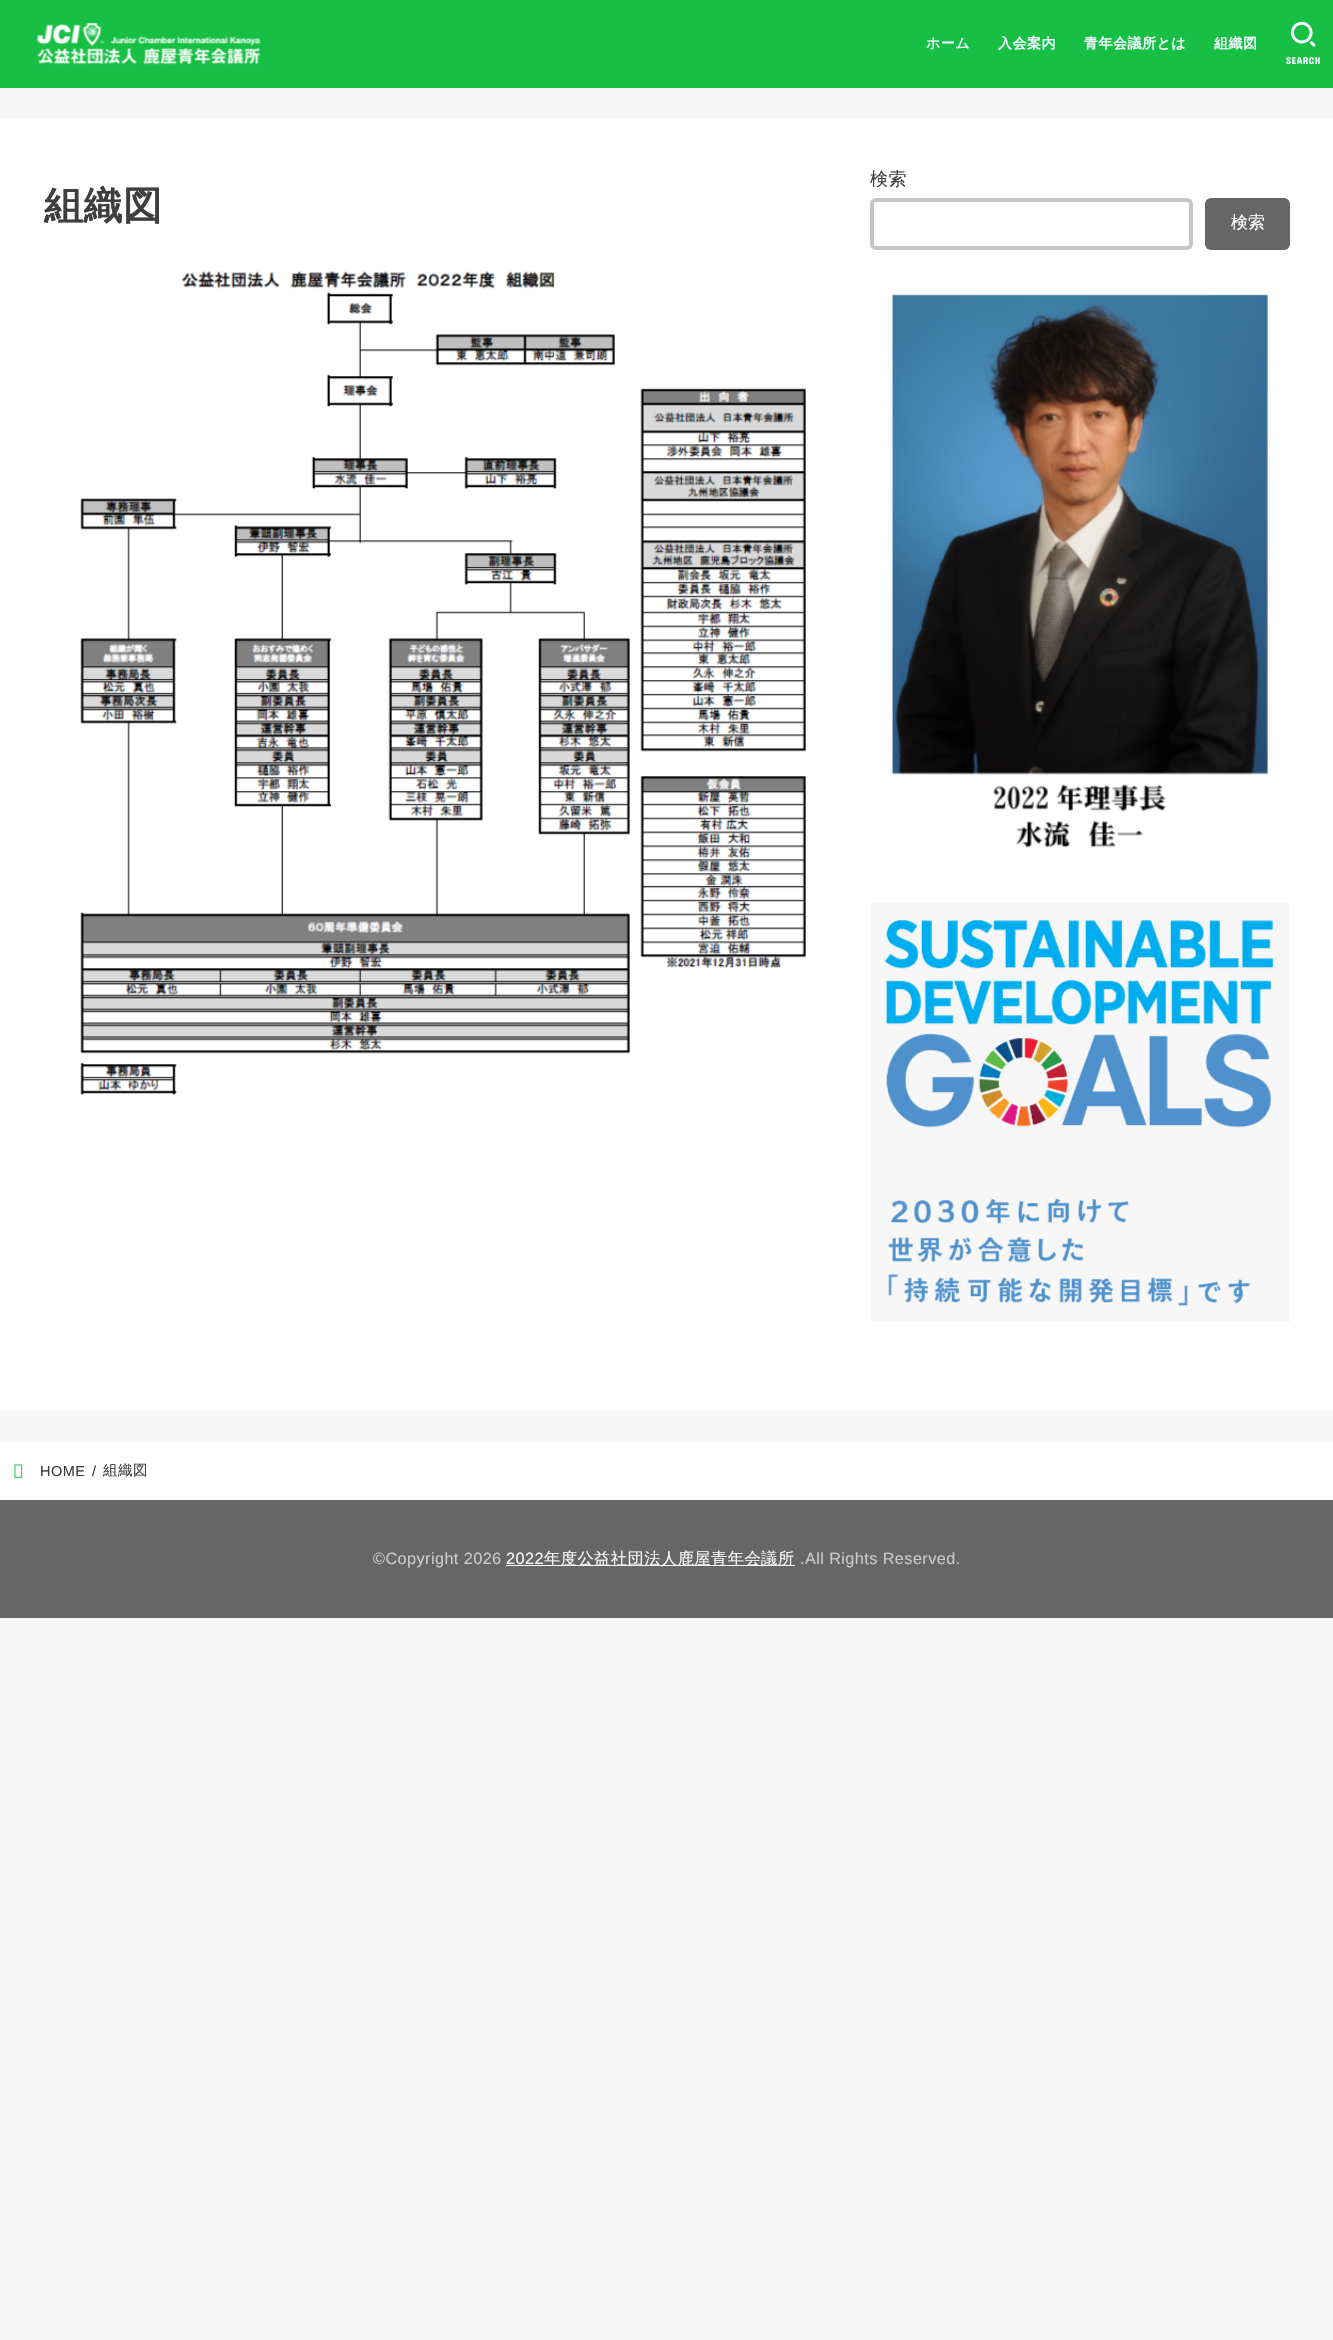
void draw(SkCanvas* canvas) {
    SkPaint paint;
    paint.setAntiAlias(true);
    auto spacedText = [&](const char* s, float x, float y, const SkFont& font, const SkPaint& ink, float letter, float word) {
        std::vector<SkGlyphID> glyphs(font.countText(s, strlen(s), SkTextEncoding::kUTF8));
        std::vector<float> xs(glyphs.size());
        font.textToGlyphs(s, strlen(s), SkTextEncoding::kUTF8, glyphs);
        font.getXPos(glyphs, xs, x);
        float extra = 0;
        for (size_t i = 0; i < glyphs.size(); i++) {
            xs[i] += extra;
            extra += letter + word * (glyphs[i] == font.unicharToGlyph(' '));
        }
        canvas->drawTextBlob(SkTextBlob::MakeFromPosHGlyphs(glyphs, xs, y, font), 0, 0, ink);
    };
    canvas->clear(0xFFF7F7F7);
    paint.setColor(0xFF18BF45);
    canvas->drawRect(SkRect::MakeXYWH(0, 0, 1333, 88), paint);
    canvas->drawImageRect(SkImages::DeferredFromEncodedData(SkData::MakeFromFileName("img1.png")), SkRect::MakeXYWH(36, 23, 225, 42), SkSamplingOptions());
    SkFont font1(fontMgr->matchFamilyStyle("WenQuanYi Zen Hei", SkFontStyle::Bold()), 14);
    font1.setSubpixel(true);
    paint.setColor(0xFFEDF9FC);
    spacedText("ホーム", 926, 48, font1, paint, 0.5f, 0);
    spacedText("入会案内", 998, 48, font1, paint, 0.5f, 0);
    spacedText("青年会議所とは", 1084, 48, font1, paint, 0.5f, 0);
    spacedText("組織図", 1214, 48, font1, paint, 0.5f, 0);
    canvas->drawImageRect(SkImages::DeferredFromEncodedData(SkData::MakeFromFileName("img2.png")), SkRect::MakeXYWH(1290, 21, 26, 26), SkSamplingOptions());
    SkFont font2(fontMgr->matchFamilyStyle("Concert One", SkFontStyle::Normal()), 10);
    font2.setSubpixel(true);
    spacedText("SEARCH", 1286, 64, font2, paint, 0.5f, 0);
    paint.setColor(0xFFFFFFFF);
    canvas->drawRect(SkRect::MakeXYWH(0, 119, 1333, 1292), paint);
    SkFont font3(fontMgr->matchFamilyStyle("WenQuanYi Zen Hei", SkFontStyle::Bold()), 39);
    font3.setSubpixel(true);
    paint.setColor(0xFF3E3E3E);
    spacedText("組織図", 44, 219, font3, paint, 0.5f, 0);
    canvas->drawImageRect(SkImages::DeferredFromEncodedData(SkData::MakeFromFileName("img3.png")), SkRect::MakeXYWH(80, 271, 726, 824), SkSamplingOptions());
    SkFont font4(fontMgr->matchFamilyStyle("WenQuanYi Zen Hei", SkFontStyle(500, SkFontStyle::kNormal_Width, SkFontStyle::kUpright_Slant)), 18);
    font4.setSubpixel(true);
    spacedText("検索", 870, 185, font4, paint, 0.5f, 0);
    paint.setStyle(SkPaint::kStroke_Style);
    paint.setStrokeWidth(4);
    paint.setColor(0xFFC6C6C6);
    canvas->drawRoundRect(SkRect::MakeXYWH(872, 200, 319, 48), 4, 4, paint);
    paint.setStyle(SkPaint::kFill_Style);
    paint.setColor(0xFF666666);
    canvas->drawRoundRect(SkRect::MakeXYWH(1205, 198, 85, 52), 6, 6, paint);
    SkFont font5(fontMgr->matchFamilyStyle("WenQuanYi Zen Hei", SkFontStyle(500, SkFontStyle::kNormal_Width, SkFontStyle::kUpright_Slant)), 17);
    font5.setSubpixel(true);
    paint.setColor(0xFFFFFFFF);
    canvas->drawString("検索", 1231, 228, font5, paint);
    canvas->drawImageRect(SkImages::DeferredFromEncodedData(SkData::MakeFromFileName("img4.png")), SkRect::MakeXYWH(891, 294, 377, 554), SkSamplingOptions());
    canvas->drawImageRect(SkImages::DeferredFromEncodedData(SkData::MakeFromFileName("img5.png")), SkRect::MakeXYWH(870, 902, 420, 420), SkSamplingOptions());
    canvas->drawRect(SkRect::MakeXYWH(0, 1443, 1333, 57), paint);
    canvas->drawImageRect(SkImages::DeferredFromEncodedData(SkData::MakeFromFileName("img6.png")), SkRect::MakeXYWH(14, 1464, 9, 14), SkSamplingOptions());
    SkFont font6(fontMgr->matchFamilyStyle("Liberation Sans", SkFontStyle::Normal()), 14.5f);
    font6.setSubpixel(true);
    paint.setColor(0xFF3E3E3E);
    spacedText("HOME", 40, 1476, font6, paint, 0.5f, 0);
    spacedText("/", 92, 1476, font6, paint, 0.5f, 0);
    SkFont font7(fontMgr->matchFamilyStyle("WenQuanYi Zen Hei", SkFontStyle(500, SkFontStyle::kNormal_Width, SkFontStyle::kUpright_Slant)), 14.5f);
    font7.setSubpixel(true);
    spacedText("組織図", 103, 1475, font7, paint, 0.5f, 0);
    paint.setColor(0xFF666666);
    canvas->drawRect(SkRect::MakeXYWH(0, 1500, 1333, 118), paint);
    SkFont font8(fontMgr->matchFamilyStyle("Liberation Sans", SkFontStyle::Normal()), 16.3f);
    font8.setSubpixel(true);
    paint.setColor(0xFFCACACA);
    spacedText("©Copyright 2026", 373, 1564, font8, paint, 0.4f, 0);
    paint.setColor(0xFFF7F7F7);
    spacedText("2022", 506, 1564, font8, paint, 0.4f, 0);
    canvas->drawRect(SkRect::MakeXYWH(506, 1565, 289, 1), paint);
    SkFont font9(fontMgr->matchFamilyStyle("WenQuanYi Zen Hei", SkFontStyle(500, SkFontStyle::kNormal_Width, SkFontStyle::kUpright_Slant)), 16.3f);
    font9.setSubpixel(true);
    spacedText("年度公益社団法人鹿屋青年会議所", 544, 1564, font9, paint, 0.4f, 0);
    paint.setColor(0xFFCACACA);
    spacedText(".All Rights Reserved.", 800, 1564, font8, paint, 0.4f, 0);
}
